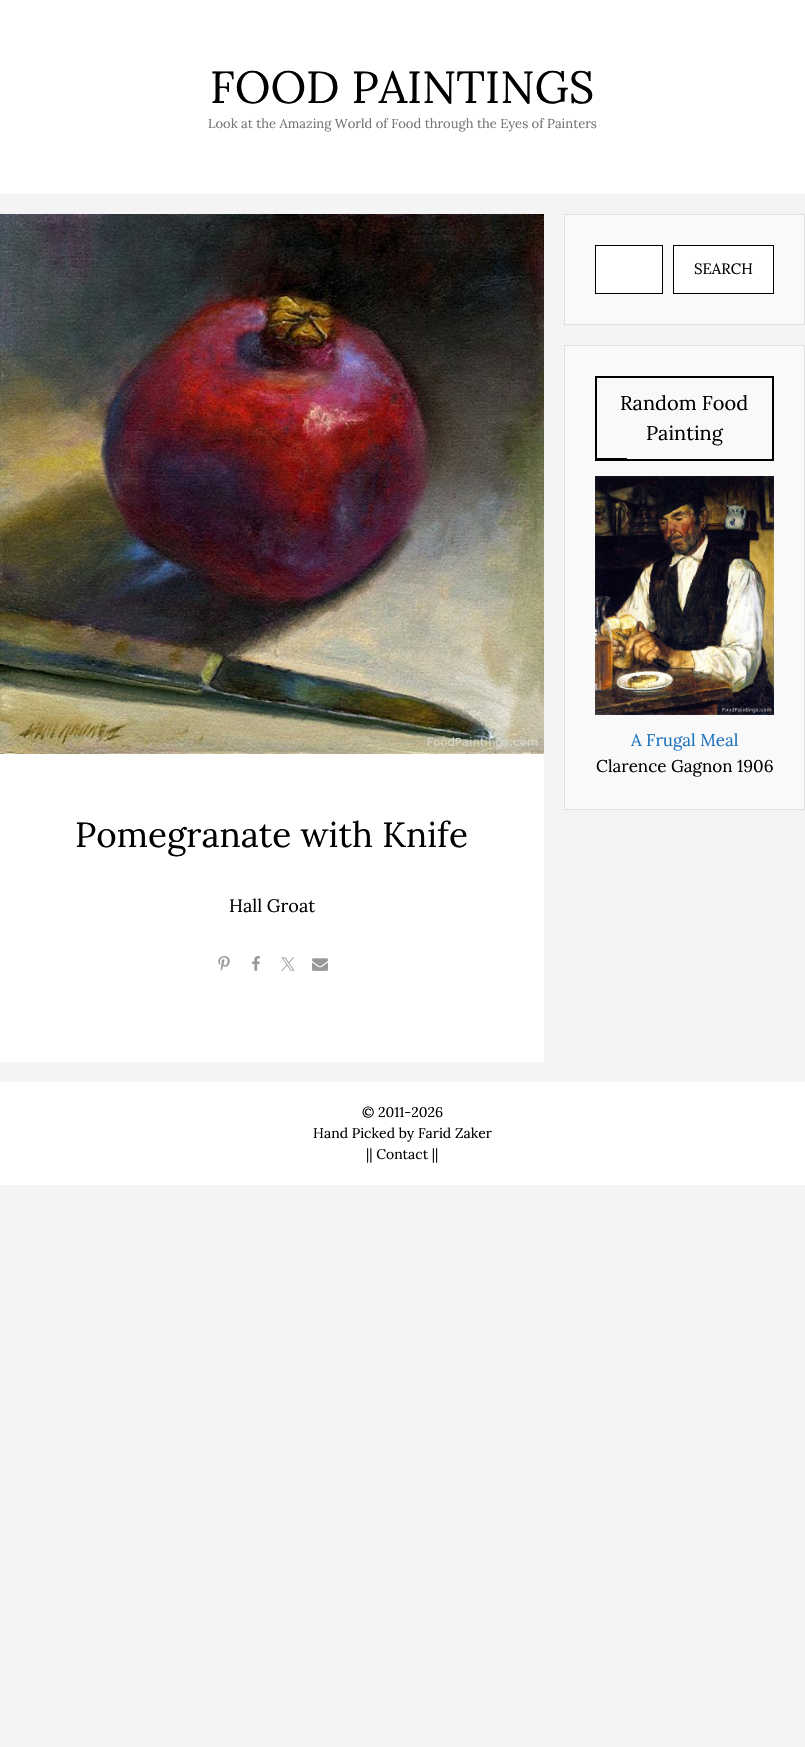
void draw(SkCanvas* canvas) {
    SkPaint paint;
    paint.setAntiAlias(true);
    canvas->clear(0xFFF4F4F4);
    paint.setColor(0xFFFFFFFF);
    canvas->drawRect(SkRect::MakeXYWH(0, 0, 805, 194), paint);
    SkFont font1(fontMgr->matchFamilyStyle("Lora", SkFontStyle::Normal()), 45);
    font1.setSubpixel(true);
    paint.setColor(0xFF000000);
    canvas->drawString("FOOD PAINTINGS", 210, 103, font1, paint);
    SkFont font2(fontMgr->matchFamilyStyle("Lora", SkFontStyle::Normal()), 13);
    font2.setSubpixel(true);
    paint.setColor(0xFF757575);
    canvas->drawString("Look at the Amazing World of Food through the Eyes of Painters", 208, 128, font2, paint);
    paint.setColor(0xFFF9F9F9);
    canvas->drawRect(SkRect::MakeXYWH(564.5f, 214.5f, 240, 110), paint);
    paint.setStyle(SkPaint::kStroke_Style);
    paint.setStrokeWidth(1);
    paint.setColor(0xFFE0E0E0);
    canvas->drawRect(SkRect::MakeXYWH(564.5f, 214.5f, 240, 110), paint);
    paint.setStyle(SkPaint::kFill_Style);
    paint.setColor(0xFFFFFFFF);
    canvas->drawRect(SkRect::MakeXYWH(595.5f, 245.5f, 67, 48), paint);
    paint.setStyle(SkPaint::kStroke_Style);
    paint.setColor(0xFF000000);
    canvas->drawRect(SkRect::MakeXYWH(595.5f, 245.5f, 67, 48), paint);
    paint.setStyle(SkPaint::kFill_Style);
    paint.setColor(0xFFFFFFFF);
    canvas->drawRect(SkRect::MakeXYWH(673.5f, 245.5f, 100, 48), paint);
    paint.setStyle(SkPaint::kStroke_Style);
    paint.setColor(0xFF000000);
    canvas->drawRect(SkRect::MakeXYWH(673.5f, 245.5f, 100, 48), paint);
    SkFont font3(fontMgr->matchFamilyStyle("Lora", SkFontStyle::Normal()), 15);
    font3.setSubpixel(true);
    paint.setStyle(SkPaint::kFill_Style);
    canvas->drawString("SEARCH", 694, 274, font3, paint);
    paint.setColor(0xFFF9F9F9);
    canvas->drawRect(SkRect::MakeXYWH(564.5f, 345.5f, 240, 464), paint);
    paint.setStyle(SkPaint::kStroke_Style);
    paint.setColor(0xFFE0E0E0);
    canvas->drawRect(SkRect::MakeXYWH(564.5f, 345.5f, 240, 464), paint);
    paint.setStrokeWidth(2);
    paint.setColor(0xFF000000);
    canvas->drawRect(SkRect::MakeXYWH(596, 377, 177, 83), paint);
    SkFont font4(fontMgr->matchFamilyStyle("Lora", SkFontStyle::Normal()), 20);
    font4.setSubpixel(true);
    paint.setStyle(SkPaint::kFill_Style);
    canvas->drawString("Random Food", 620, 410, font4, paint);
    canvas->drawString("Painting", 646, 440, font4, paint);
    canvas->drawRect(SkRect::MakeXYWH(597, 458, 30, 1), paint);
    canvas->drawImageRect(SkImages::DeferredFromEncodedData(SkData::MakeFromFileName("img1.png")), SkRect::MakeXYWH(595, 476, 179, 239), SkSamplingOptions());
    SkFont font5(fontMgr->matchFamilyStyle("Lora", SkFontStyle::Normal()), 17);
    font5.setSubpixel(true);
    paint.setColor(0xFF1E73BE);
    canvas->drawString("A Frugal Meal", 631, 746, font5, paint);
    paint.setColor(0xFF000000);
    canvas->drawString("Clarence Gagnon 1906", 596, 772, font5, paint);
    paint.setColor(0xFFFFFFFF);
    canvas->drawRect(SkRect::MakeXYWH(0, 754, 544, 308), paint);
    canvas->drawImageRect(SkImages::DeferredFromEncodedData(SkData::MakeFromFileName("img2.png")), SkRect::MakeXYWH(0, 214, 544, 540), SkSamplingOptions());
    SkFont font6(fontMgr->matchFamilyStyle("Lora", SkFontStyle::Normal()), 35);
    font6.setSubpixel(true);
    paint.setColor(0xFF000000);
    canvas->drawString("Pomegranate with Knife", 75, 847, font6, paint);
    SkFont font7(fontMgr->matchFamilyStyle("Lora", SkFontStyle::Normal()), 18);
    font7.setSubpixel(true);
    canvas->drawString("Hall Groat", 229, 912, font7, paint);
    canvas->drawImageRect(SkImages::DeferredFromEncodedData(SkData::MakeFromFileName("img3.png")), SkRect::MakeXYWH(218, 956, 12, 15), SkSamplingOptions());
    canvas->drawImageRect(SkImages::DeferredFromEncodedData(SkData::MakeFromFileName("img4.png")), SkRect::MakeXYWH(252, 956, 8, 15), SkSamplingOptions());
    canvas->drawImageRect(SkImages::DeferredFromEncodedData(SkData::MakeFromFileName("img5.png")), SkRect::MakeXYWH(281, 957, 14, 14), SkSamplingOptions());
    canvas->drawImageRect(SkImages::DeferredFromEncodedData(SkData::MakeFromFileName("img6.png")), SkRect::MakeXYWH(312, 958, 16, 13), SkSamplingOptions());
    paint.setColor(0xFFFFFFFF);
    canvas->drawRect(SkRect::MakeXYWH(0, 1082, 805, 103), paint);
    SkFont font8(fontMgr->matchFamilyStyle("Lora", SkFontStyle::Normal()), 14);
    font8.setSubpixel(true);
    paint.setColor(0xFF000000);
    canvas->drawString("© 2011-2026", 362, 1117, font8, paint);
    canvas->drawString("Hand Picked by Farid Zaker", 313, 1138, font8, paint);
    canvas->drawString("|| Contact ||", 366, 1159, font8, paint);
}
